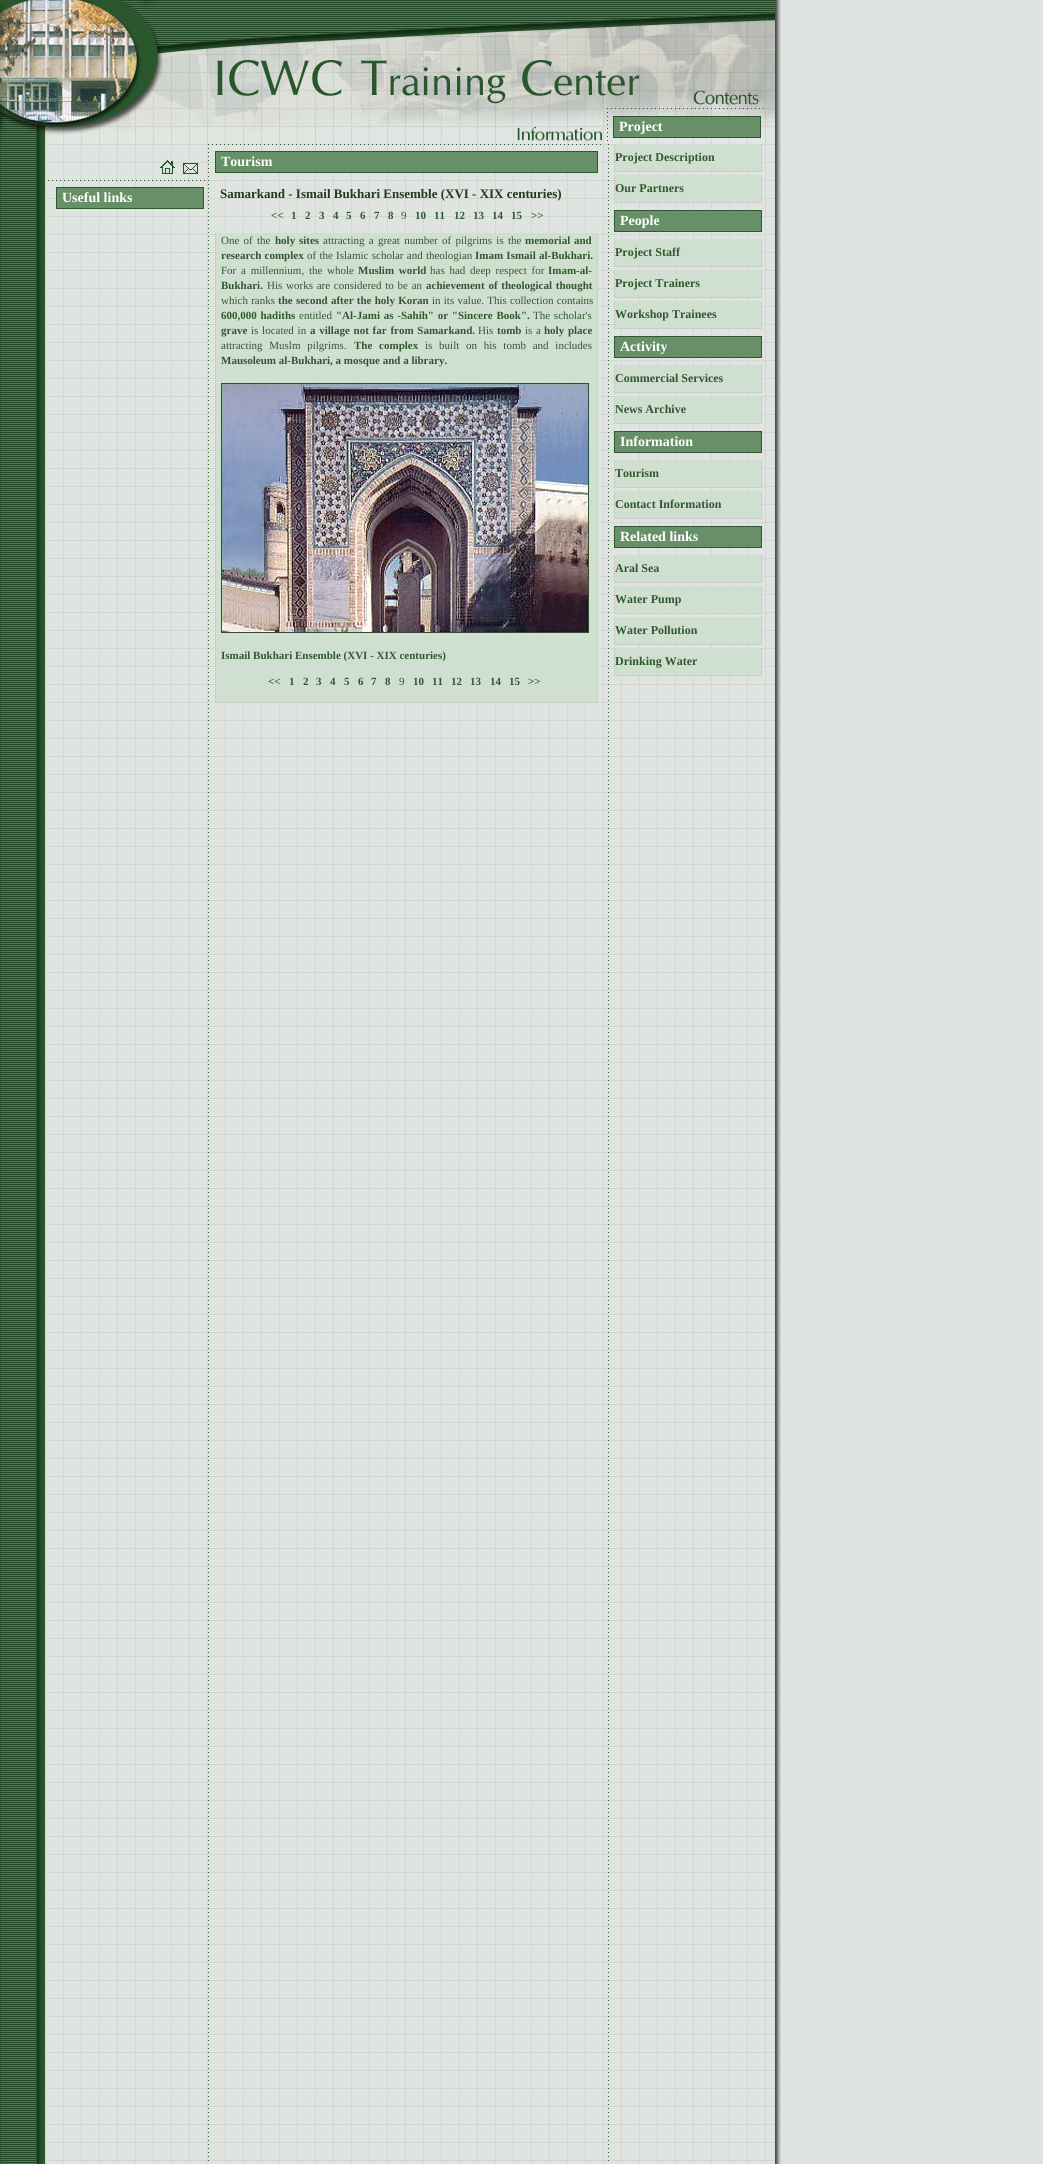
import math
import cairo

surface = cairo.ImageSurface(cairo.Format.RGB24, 1043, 2164)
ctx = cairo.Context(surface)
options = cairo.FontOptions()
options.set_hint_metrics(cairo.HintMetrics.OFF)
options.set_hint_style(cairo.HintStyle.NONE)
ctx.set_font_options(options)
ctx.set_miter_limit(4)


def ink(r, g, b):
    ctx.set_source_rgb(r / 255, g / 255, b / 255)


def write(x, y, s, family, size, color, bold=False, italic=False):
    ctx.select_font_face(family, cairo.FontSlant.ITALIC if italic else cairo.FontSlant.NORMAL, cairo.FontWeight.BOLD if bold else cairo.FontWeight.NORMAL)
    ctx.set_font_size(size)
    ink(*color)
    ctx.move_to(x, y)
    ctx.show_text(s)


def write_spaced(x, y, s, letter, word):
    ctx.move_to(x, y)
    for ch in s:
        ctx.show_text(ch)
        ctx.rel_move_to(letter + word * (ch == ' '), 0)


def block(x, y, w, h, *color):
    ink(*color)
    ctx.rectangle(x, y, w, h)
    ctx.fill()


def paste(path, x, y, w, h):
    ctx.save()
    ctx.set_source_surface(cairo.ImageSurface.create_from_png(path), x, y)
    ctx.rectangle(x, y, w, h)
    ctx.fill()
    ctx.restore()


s1 = dict(family="Liberation Serif", size=14, color=(255, 255, 255), bold=True)
s2 = dict(family="Liberation Serif", size=13, color=(32, 57, 32), bold=True)
s3 = dict(family="Liberation Serif", size=11, color=(48, 88, 48), bold=True)
s4 = dict(family="Liberation Serif", size=11, color=(48, 88, 48))
s5 = dict(family="Liberation Serif", size=12, color=(48, 88, 48), bold=True)

ink(224, 228, 224)
ctx.paint()
paste("pic1.png", 0, 0, 207, 144)
paste("pic2.png", 207, 0, 72, 144)
paste("pic3.png", 279, 0, 324, 144)
paste("pic4.png", 517, 126, 85, 16)
paste("pic5.png", 603, 0, 172, 108)
paste("pic6.png", 693, 90, 66, 15)
paste("pic7.png", 775, 0, 6, 144)
paste("pic8.png", 603, 108, 172, 36)
paste("pic9.png", 607, 108, 157, 1)
paste("pic10.png", 607, 112, 1, 29)
ink(104, 144, 104)
ctx.rectangle(613.5, 116.5, 147, 21)
ctx.fill_preserve()
ink(48, 88, 48)
ctx.set_line_width(1)
ctx.stroke()
write(619, 131, "Project", **s1)
paste("pic11.png", 0, 144, 45, 2020)
paste("pic12.png", 45, 144, 737, 2020)
paste("pic13.png", 160, 160, 15, 14)
paste("pic14.png", 183, 163, 15, 11)
paste("pic15.png", 48, 180, 157, 1)
ink(104, 144, 104)
ctx.rectangle(56.5, 187.5, 147, 21)
ctx.fill_preserve()
ink(48, 88, 48)
ctx.stroke()
write(62, 202, "Useful links", **s1)
paste("pic16.png", 208, 144, 1, 2017)
paste("pic17.png", 212, 144, 389, 1)
ink(104, 144, 104)
ctx.rectangle(215.5, 151.5, 382, 21)
ctx.fill_preserve()
ink(48, 88, 48)
ctx.stroke()
write(221, 166, "Tourism", **s1)
write(220, 198, "Samarkand - Ismail Bukhari Ensemble (XVI - XIX centuries)", **s2)
write(271, 219, "<<", **s3)
write(291, 219, "1", **s3)
write(305, 219, "2", **s3)
write(319, 219, "3", **s3)
write(333, 219, "4", **s3)
write(346, 219, "5", **s3)
write(360, 219, "6", **s3)
write(374, 219, "7", **s3)
write(388, 219, "8", **s3)
write(401, 219, "9", **s4)
write(415, 219, "10", **s3)
write(434, 219, "11", **s3)
write(454, 219, "12", **s3)
write(473, 219, "13", **s3)
write(492, 219, "14", **s3)
write(511, 219, "15", **s3)
write(531, 219, ">>", **s3)
block(216, 233, 381, 469, 208, 224, 208)
block(597, 233, 1, 470, 204, 204, 204)
block(215, 702, 383, 1, 204, 204, 204)
block(215, 233, 1, 470, 204, 204, 204)
ctx.select_font_face("Liberation Serif")
ink(48, 88, 48)
write_spaced(221, 244, "One of the", 0, 1.5)
ctx.select_font_face("Liberation Serif", cairo.FontSlant.NORMAL, cairo.FontWeight.BOLD)
write_spaced(275, 244, "holy sites", 0, 1)
ctx.select_font_face("Liberation Serif")
write_spaced(323, 244, "attracting a great number of pilgrims is the", 0, 1.5)
ctx.select_font_face("Liberation Serif", cairo.FontSlant.NORMAL, cairo.FontWeight.BOLD)
write_spaced(525, 244, "memorial and", 0, 1)
write_spaced(221, 259, "research complex", 0, 0.5)
ctx.select_font_face("Liberation Serif")
write_spaced(307, 259, "of the Islamic scholar and theologian", 0, 0.5)
ctx.select_font_face("Liberation Serif", cairo.FontSlant.NORMAL, cairo.FontWeight.BOLD)
write_spaced(475, 259, "Imam Ismail al-Bukhari.", 0, 0.5)
ctx.select_font_face("Liberation Serif")
write_spaced(221, 274, "For a millennium, the whole", 0, 2)
ctx.select_font_face("Liberation Serif", cairo.FontSlant.NORMAL, cairo.FontWeight.BOLD)
write_spaced(358, 274, "Muslim world", 0, 2)
ctx.select_font_face("Liberation Serif")
write_spaced(430, 274, "has had deep respect for", 0, 2)
write(548, 274, "Imam-al-", **s3)
write(221, 289, "Bukhari.", **s3)
ctx.select_font_face("Liberation Serif")
write_spaced(267, 289, "His works are considered to be an", 0, 1)
ctx.select_font_face("Liberation Serif", cairo.FontSlant.NORMAL, cairo.FontWeight.BOLD)
write_spaced(426, 289, "achievement of theological thought", 0, 1)
ctx.select_font_face("Liberation Serif")
write_spaced(221, 304, "which ranks", 0, 0.5)
ctx.select_font_face("Liberation Serif", cairo.FontSlant.NORMAL, cairo.FontWeight.BOLD)
write_spaced(278, 304, "the second after the holy Koran", 0, 0.5)
ctx.select_font_face("Liberation Serif")
write_spaced(432, 304, "in its value. This collection contains", 0, 0.5)
ctx.select_font_face("Liberation Serif", cairo.FontSlant.NORMAL, cairo.FontWeight.BOLD)
write_spaced(221, 319, "600,000 hadiths", 0, 1)
write(299, 319, "entitled", **s4)
ctx.select_font_face("Liberation Serif", cairo.FontSlant.NORMAL, cairo.FontWeight.BOLD)
write_spaced(336, 319, "\"Al-Jami as -Sahih\" or \"Sincere Book\".", 0, 1)
ctx.select_font_face("Liberation Serif")
write_spaced(533, 319, "The scholar's", 0, 1)
write(221, 334, "grave", **s3)
ctx.select_font_face("Liberation Serif")
write_spaced(251, 334, "is located in", 0, 1)
ctx.select_font_face("Liberation Serif", cairo.FontSlant.NORMAL, cairo.FontWeight.BOLD)
write_spaced(310, 334, "a village not far from Samarkand.", 0, 1)
write(478, 334, "His", **s4)
write(497, 334, "tomb", **s3)
ctx.select_font_face("Liberation Serif")
write_spaced(525, 334, "is a", 0, 1)
ctx.select_font_face("Liberation Serif", cairo.FontSlant.NORMAL, cairo.FontWeight.BOLD)
write_spaced(544, 334, "holy place", 0, 1)
ctx.select_font_face("Liberation Serif")
write_spaced(221, 349, "attracting Muslm pilgrims.", 0, 4)
ctx.select_font_face("Liberation Serif", cairo.FontSlant.NORMAL, cairo.FontWeight.BOLD)
write_spaced(354, 349, "The complex", 0, 4)
ctx.select_font_face("Liberation Serif")
write_spaced(425, 349, "is built on his tomb and includes", 0, 4)
write(221, 364, "Mausoleum al-Bukhari, a mosque and a library.", **s3)
paste("pic18.png", 221, 383, 368, 250)
write(221, 659, "Ismail Bukhari Ensemble (XVI - XIX centuries)", **s3)
write(268, 685, "<<", **s3)
write(289, 685, "1", **s3)
write(303, 685, "2", **s3)
write(316, 685, "3", **s3)
write(330, 685, "4", **s3)
write(344, 685, "5", **s3)
write(358, 685, "6", **s3)
write(371, 685, "7", **s3)
write(385, 685, "8", **s3)
write(399, 685, "9", **s4)
write(413, 685, "10", **s3)
write(432, 685, "11", **s3)
write(451, 685, "12", **s3)
write(470, 685, "13", **s3)
write(490, 685, "14", **s3)
write(509, 685, "15", **s3)
write(528, 685, ">>", **s3)
paste("pic16.png", 608, 144, 1, 2017)
block(615, 144, 146, 27, 208, 224, 208)
block(761, 144, 1, 28, 204, 204, 204)
block(614, 171, 148, 1, 204, 204, 204)
block(614, 144, 1, 28, 204, 204, 204)
write(615, 161, "Project Description", **s5)
block(615, 175, 146, 27, 208, 224, 208)
block(761, 175, 1, 28, 204, 204, 204)
block(614, 202, 148, 1, 204, 204, 204)
block(614, 175, 1, 28, 204, 204, 204)
write(615, 192, "Our Partners", **s5)
ink(104, 144, 104)
ctx.rectangle(614.5, 210.5, 147, 21)
ctx.fill_preserve()
ink(48, 88, 48)
ctx.stroke()
write(620, 225, "People", **s1)
block(615, 239, 146, 27, 208, 224, 208)
block(761, 239, 1, 28, 204, 204, 204)
block(614, 266, 148, 1, 204, 204, 204)
block(614, 239, 1, 28, 204, 204, 204)
write(615, 256, "Project Staff", **s5)
block(615, 270, 146, 27, 208, 224, 208)
block(761, 270, 1, 28, 204, 204, 204)
block(614, 297, 148, 1, 204, 204, 204)
block(614, 270, 1, 28, 204, 204, 204)
write(615, 287, "Project Trainers", **s5)
block(615, 301, 146, 27, 208, 224, 208)
block(761, 301, 1, 28, 204, 204, 204)
block(614, 328, 148, 1, 204, 204, 204)
block(614, 301, 1, 28, 204, 204, 204)
write(615, 318, "Workshop Trainees", **s5)
ink(104, 144, 104)
ctx.rectangle(614.5, 336.5, 147, 21)
ctx.fill_preserve()
ink(48, 88, 48)
ctx.stroke()
write(620, 351, "Activity", **s1)
block(615, 365, 146, 27, 208, 224, 208)
block(761, 365, 1, 28, 204, 204, 204)
block(614, 392, 148, 1, 204, 204, 204)
block(614, 365, 1, 28, 204, 204, 204)
write(615, 382, "Commercial Services", **s5)
block(615, 396, 146, 27, 208, 224, 208)
block(761, 396, 1, 28, 204, 204, 204)
block(614, 423, 148, 1, 204, 204, 204)
block(614, 396, 1, 28, 204, 204, 204)
write(615, 413, "News Archive", **s5)
ink(104, 144, 104)
ctx.rectangle(614.5, 431.5, 147, 21)
ctx.fill_preserve()
ink(48, 88, 48)
ctx.stroke()
write(620, 446, "Information", **s1)
block(615, 460, 146, 27, 208, 224, 208)
block(761, 460, 1, 28, 204, 204, 204)
block(614, 487, 148, 1, 204, 204, 204)
block(614, 460, 1, 28, 204, 204, 204)
write(615, 477, "Tourism", **s5)
block(615, 491, 146, 27, 208, 224, 208)
block(761, 491, 1, 28, 204, 204, 204)
block(614, 518, 148, 1, 204, 204, 204)
block(614, 491, 1, 28, 204, 204, 204)
write(615, 508, "Contact Information", **s5)
ink(104, 144, 104)
ctx.rectangle(614.5, 526.5, 147, 21)
ctx.fill_preserve()
ink(48, 88, 48)
ctx.stroke()
write(620, 541, "Related links", **s1)
block(615, 555, 146, 27, 208, 224, 208)
block(761, 555, 1, 28, 204, 204, 204)
block(614, 582, 148, 1, 204, 204, 204)
block(614, 555, 1, 28, 204, 204, 204)
write(615, 572, "Aral Sea", **s5)
block(615, 586, 146, 27, 208, 224, 208)
block(761, 586, 1, 28, 204, 204, 204)
block(614, 613, 148, 1, 204, 204, 204)
block(614, 586, 1, 28, 204, 204, 204)
write(615, 603, "Water Pump", **s5)
block(615, 617, 146, 27, 208, 224, 208)
block(761, 617, 1, 28, 204, 204, 204)
block(614, 644, 148, 1, 204, 204, 204)
block(614, 617, 1, 28, 204, 204, 204)
write(615, 634, "Water Pollution", **s5)
block(615, 648, 146, 27, 208, 224, 208)
block(761, 648, 1, 28, 204, 204, 204)
block(614, 675, 148, 1, 204, 204, 204)
block(614, 648, 1, 28, 204, 204, 204)
write(615, 665, "Drinking Water", **s5)
paste("pic19.png", 775, 144, 6, 2020)
surface.write_to_png("screenshot.png")
